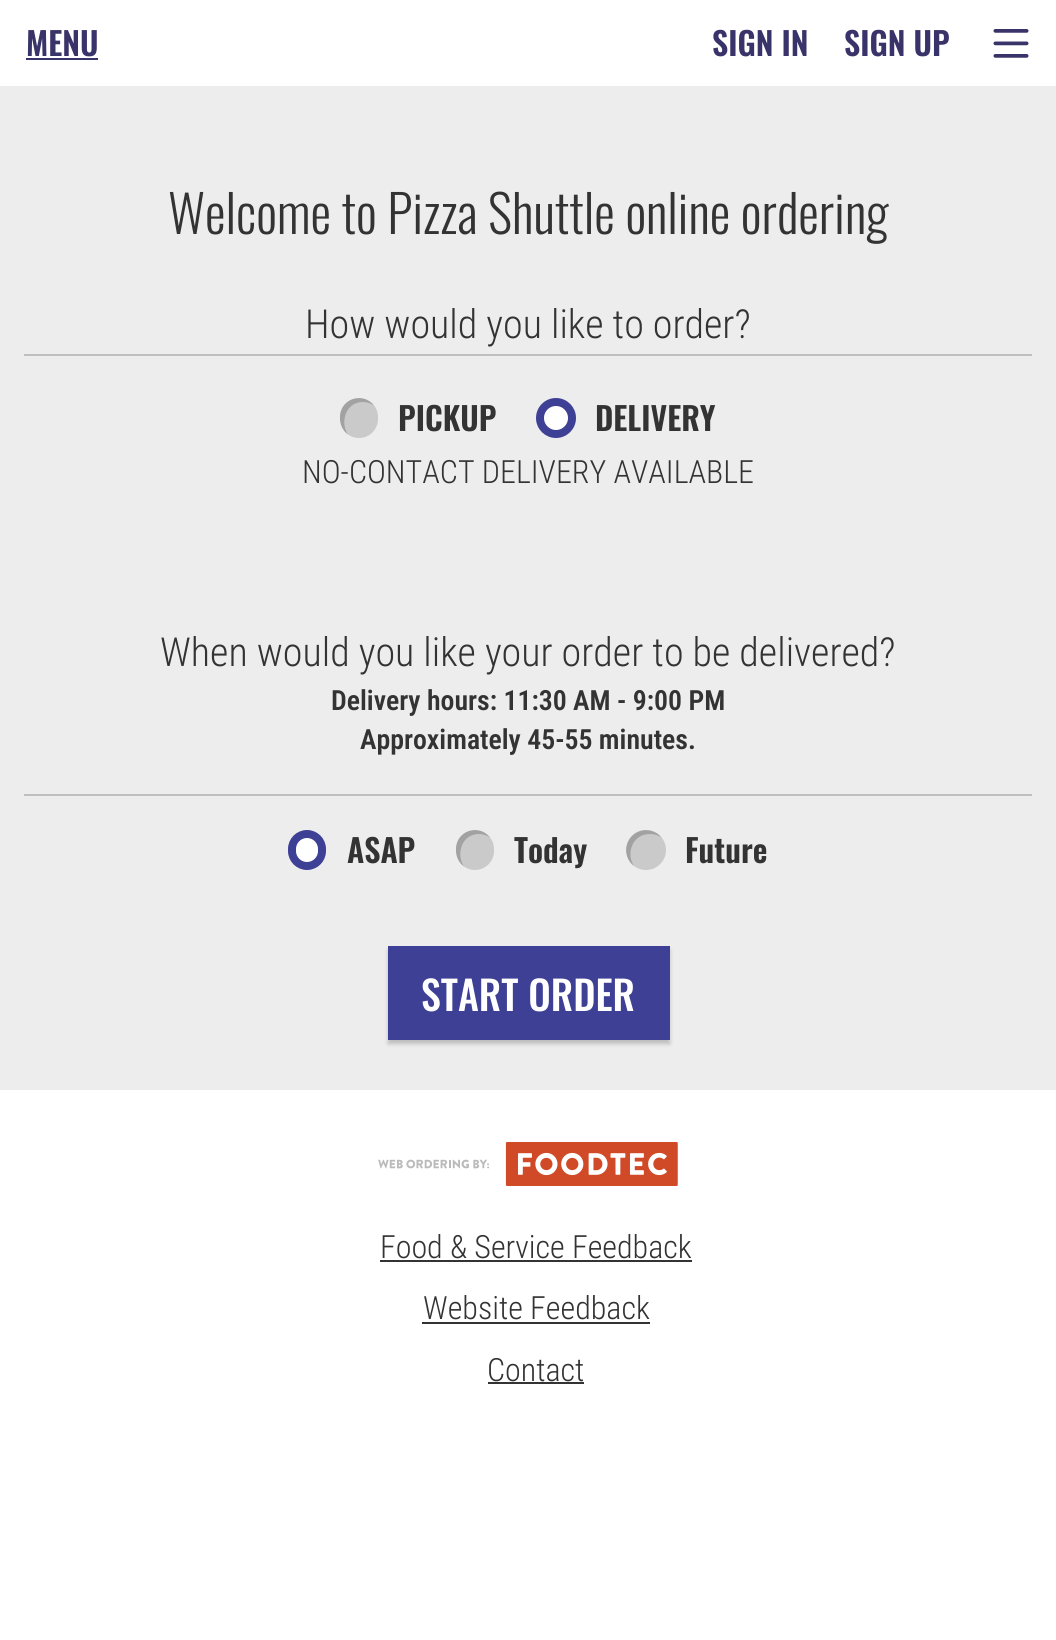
import math
import cairo

surface = cairo.ImageSurface(cairo.Format.RGB24, 1056, 1640)
ctx = cairo.Context(surface)
options = cairo.FontOptions()
options.set_hint_metrics(cairo.HintMetrics.OFF)
options.set_hint_style(cairo.HintStyle.NONE)
ctx.set_font_options(options)
ctx.set_miter_limit(4)


def ink(r, g, b):
    ctx.set_source_rgb(r / 255, g / 255, b / 255)


def write(x, y, s, family, size, color, bold=False, italic=False):
    ctx.select_font_face(family, cairo.FontSlant.ITALIC if italic else cairo.FontSlant.NORMAL, cairo.FontWeight.BOLD if bold else cairo.FontWeight.NORMAL)
    ctx.set_font_size(size)
    ink(*color)
    ctx.move_to(x, y)
    ctx.show_text(s)


def block(x, y, w, h, *color):
    ink(*color)
    ctx.rectangle(x, y, w, h)
    ctx.fill()


def round_path(x, y, w, h, r):
    ctx.new_sub_path()
    for i, (u, v) in enumerate([(x + w - r, y + h - r), (x + r, y + h - r), (x + r, y + r), (x + w - r, y + r)]):
        ctx.arc(u, v, r, i * math.pi / 2, (i + 1) * math.pi / 2)
    ctx.close_path()


def blur_box(x, y, w, h, r, blur, alpha):
    ctx.push_group_with_content(cairo.Content.ALPHA)
    ctx.set_operator(cairo.Operator.SOURCE)
    for i in range(15, -16, -2):
        e = blur * i / 6
        if min(w, h) + 2 * e > 0:
            ctx.set_source_rgba(0, 0, 0, alpha * math.erfc((i - 1) / 8.5) / 2)
            round_path(x - e, y - e, w + 2 * e, h + 2 * e, max(0, min(r + e + blur * .6, min(w, h) / 2 + e)))
            ctx.fill()
    ctx.mask(ctx.pop_group())


def paste(path, x, y, w, h):
    ctx.save()
    ctx.set_source_surface(cairo.ImageSurface.create_from_png(path), x, y)
    ctx.rectangle(x, y, w, h)
    ctx.fill()
    ctx.restore()


s1 = dict(family="Oswald SemiBold", size=32, color=(56, 51, 104))
s2 = dict(family="Oswald Light", size=51.9, color=(51, 51, 51))
s3 = dict(family="Roboto Condensed Light", size=40, color=(51, 51, 51))
s4 = dict(family="Oswald SemiBold", size=32, color=(51, 51, 51))
s5 = dict(family="Roboto Condensed Light", size=32, color=(51, 51, 51))
s6 = dict(family="Roboto Condensed SemiBold", size=27.8, color=(51, 51, 51))
s7 = dict(family="Oswald Medium", size=40, color=(255, 255, 255))

ink(255, 255, 255)
ctx.paint()
write(26, 56, "MENU", **s1)
block(26, 58, 72, 2, 56, 51, 104)
write(712, 56, "SIGN IN", **s1)
write(844, 56, "SIGN UP", **s1)
paste("pic1.png", 993, 29, 36, 29)
block(0, 86, 1056, 1004, 237, 237, 237)
write(168, 234, "Welcome to Pizza Shuttle online ordering", **s2)
write(305, 338, "How would you like to order?", **s3)
block(24, 354, 1008, 2, 191, 191, 191)
ink(202, 202, 202)
round_path(340, 398, 38, 40, 19)
ctx.fill()
ctx.set_source_rgba(0, 0, 0, 0.2)
ctx.new_path()
ctx.move_to(363, 402)
ctx.curve_to(367.5, 402, 371, 403.5, 374, 405.5)
ctx.curve_to(366.5, 395.5, 350.5, 395.5, 343, 406.5)
ctx.curve_to(337.5, 415, 339.5, 428.5, 348, 434.5)
ctx.curve_to(340, 423, 345, 402, 363, 402)
ctx.close_path()
ctx.fill()
write(398, 431, "PICKUP", **s4)
ink(255, 255, 255)
ctx.new_path()
ctx.arc(556, 418, 16, 0, 2 * math.pi)
ctx.fill_preserve()
ink(62, 64, 149)
ctx.set_line_width(8)
ctx.stroke()
write(595, 431, "DELIVERY", **s4)
write(302, 483, "NO-CONTACT DELIVERY AVAILABLE", **s5)
write(160, 666, "When would you like your order to be delivered?", **s3)
write(331, 710, "Delivery hours: 11:30 AM - 9:00 PM", **s6)
write(360, 749, "Approximately 45-55 minutes.", **s6)
block(24, 794, 1008, 2, 191, 191, 191)
ink(255, 255, 255)
round_path(292, 834, 30, 32, 15)
ctx.fill_preserve()
ink(62, 64, 149)
ctx.stroke()
write(347, 863, "ASAP", **s4)
ink(202, 202, 202)
round_path(456, 830, 38, 40, 19)
ctx.fill()
ctx.set_source_rgba(0, 0, 0, 0.2)
ctx.new_path()
ctx.move_to(479, 834)
ctx.curve_to(483.5, 834, 487, 835.5, 490, 837.5)
ctx.curve_to(482.5, 827.5, 466.5, 827.5, 459, 838.5)
ctx.curve_to(453.5, 847, 455.5, 860.5, 464, 866.5)
ctx.curve_to(456, 855, 461, 834, 479, 834)
ctx.close_path()
ctx.fill()
write(514, 863, "Today", **s4)
ink(202, 202, 202)
ctx.new_path()
ctx.arc(646, 850, 20, 0, 2 * math.pi)
ctx.fill()
ctx.set_source_rgba(0, 0, 0, 0.2)
ctx.new_path()
ctx.move_to(650, 834)
ctx.curve_to(654.5, 834, 658.5, 835.5, 661.5, 837.5)
ctx.curve_to(654.5, 828.5, 640, 827.5, 632, 836)
ctx.curve_to(623.5, 844.5, 624.5, 859, 634, 866)
ctx.curve_to(626, 854.5, 631.5, 834, 650, 834)
ctx.close_path()
ctx.fill()
write(685, 863, "Future", **s4)
ink(0, 0, 0)
blur_box(388, 950, 282, 94, 0, 2, 0.2)
block(388, 946, 282, 94, 62, 64, 149)
write(421, 1011, "START ORDER", **s7)
paste("pic2.png", 378, 1142, 300, 44)
write(380, 1258, "Food & Service Feedback", **s5)
block(380, 1260, 312, 2, 51, 51, 51)
write(423, 1319, "Website Feedback", **s5)
block(422, 1322, 228, 2, 51, 51, 51)
write(487, 1381, "Contact", **s5)
block(488, 1382, 96, 2, 51, 51, 51)
surface.write_to_png("screenshot.png")
